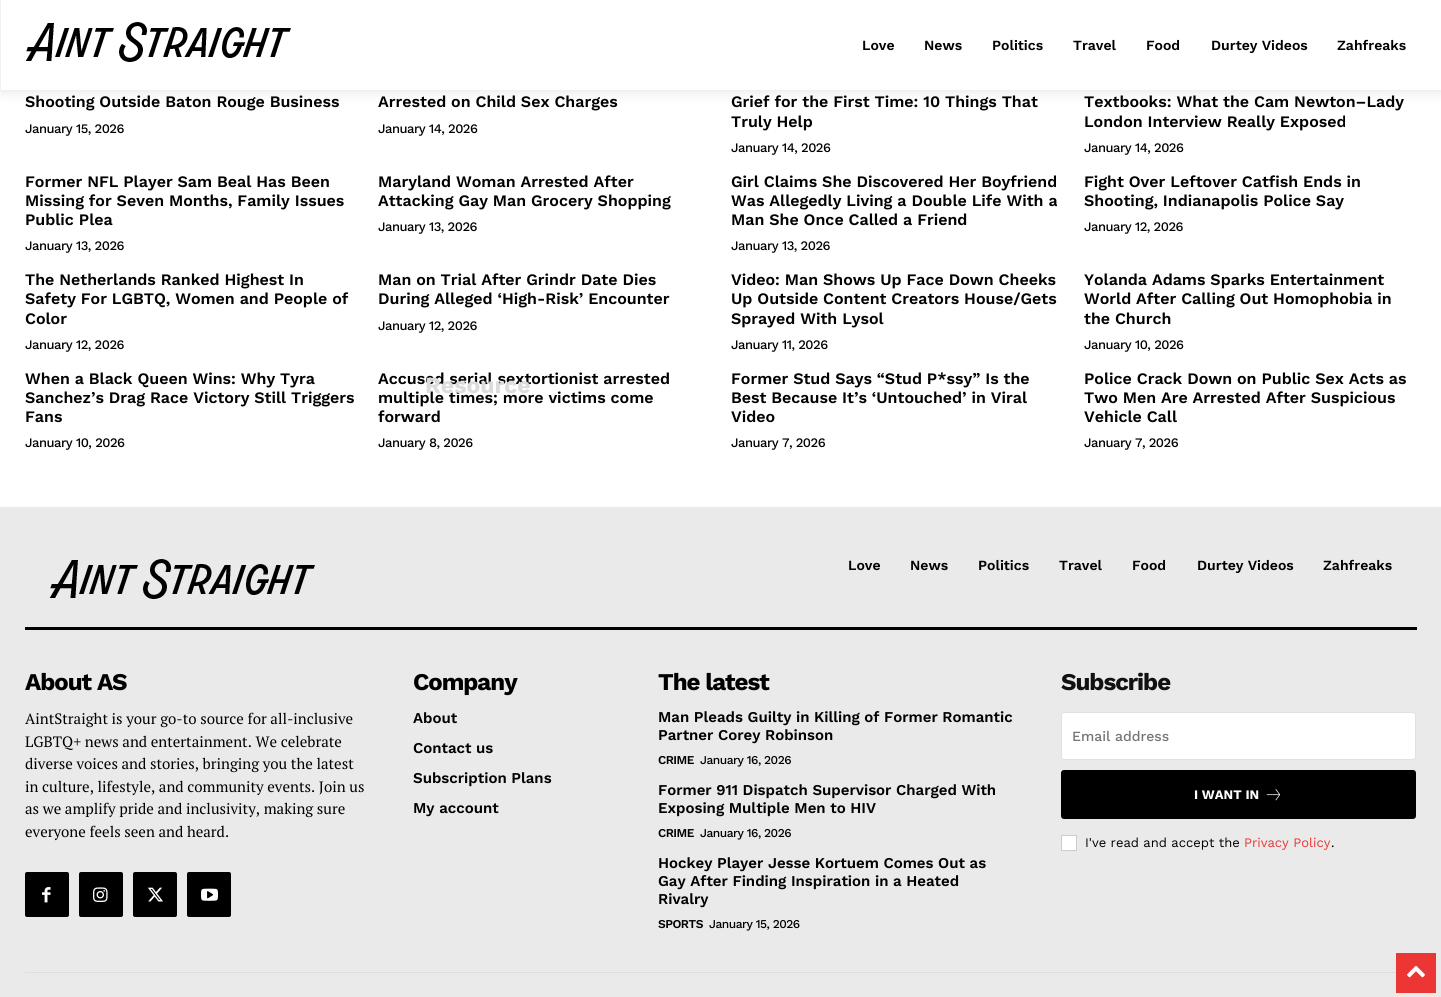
import math
import cairo

surface = cairo.ImageSurface(cairo.Format.RGB24, 1441, 997)
ctx = cairo.Context(surface)
options = cairo.FontOptions()
options.set_hint_metrics(cairo.HintMetrics.OFF)
options.set_hint_style(cairo.HintStyle.NONE)
ctx.set_font_options(options)
ctx.set_miter_limit(4)


def ink(r, g, b):
    ctx.set_source_rgb(r / 255, g / 255, b / 255)


def write(x, y, s, family, size, color, bold=False, italic=False):
    ctx.select_font_face(family, cairo.FontSlant.ITALIC if italic else cairo.FontSlant.NORMAL, cairo.FontWeight.BOLD if bold else cairo.FontWeight.NORMAL)
    ctx.set_font_size(size)
    ink(*color)
    ctx.move_to(x, y)
    ctx.show_text(s)


def write_spaced(x, y, s, letter, word):
    ctx.move_to(x, y)
    for ch in s:
        ctx.show_text(ch)
        ctx.rel_move_to(letter + word * (ch == ' '), 0)


def block(x, y, w, h, *color):
    ink(*color)
    ctx.rectangle(x, y, w, h)
    ctx.fill()


def round_path(x, y, w, h, r):
    ctx.new_sub_path()
    for i, (u, v) in enumerate([(x + w - r, y + h - r), (x + r, y + h - r), (x + r, y + r), (x + w - r, y + r)]):
        ctx.arc(u, v, r, i * math.pi / 2, (i + 1) * math.pi / 2)
    ctx.close_path()


def blur_box(x, y, w, h, r, blur, alpha):
    ctx.push_group_with_content(cairo.Content.ALPHA)
    ctx.set_operator(cairo.Operator.SOURCE)
    for i in range(15, -16, -2):
        e = blur * i / 6
        if min(w, h) + 2 * e > 0:
            ctx.set_source_rgba(0, 0, 0, alpha * math.erfc((i - 1) / 8.5) / 2)
            round_path(x - e, y - e, w + 2 * e, h + 2 * e, max(0, min(r + e + blur * .6, min(w, h) / 2 + e)))
            ctx.fill()
    ctx.mask(ctx.pop_group())


def paste(path, x, y, w, h):
    ctx.save()
    ctx.set_source_surface(cairo.ImageSurface.create_from_png(path), x, y)
    ctx.rectangle(x, y, w, h)
    ctx.fill()
    ctx.restore()


s1 = dict(family="Work Sans SemiBold", size=14, color=(0, 0, 0))
s2 = dict(family="Work Sans SemiBold", size=16, color=(0, 0, 0))
s3 = dict(family="PT Serif", size=15, color=(0, 0, 0))
s4 = dict(family="Work Sans SemiBold", size=15, color=(0, 0, 0))
s5 = dict(family="Work Sans Medium", size=14, color=(117, 117, 117))
s6 = dict(family="Work Sans", size=13, color=(255, 255, 255), bold=True)
s7 = dict(family="Work Sans", size=13, color=(0, 0, 0))
s8 = dict(family="Work Sans", size=13, color=(236, 53, 53))
s9 = dict(family="Work Sans", size=23, color=(220, 220, 220), bold=True)

ink(255, 255, 255)
ctx.paint()
paste("pic1.png", 25, 22, 266, 40)
ctx.save()
ctx.set_fill_rule(cairo.FillRule.EVEN_ODD)
ctx.new_path()
ctx.move_to(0, 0)
ctx.line_to(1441, 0)
ctx.line_to(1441, 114)
ctx.line_to(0, 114)
ctx.close_path()
ctx.move_to(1, 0)
ctx.line_to(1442, 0)
ctx.line_to(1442, 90)
ctx.line_to(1, 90)
ctx.close_path()
ctx.clip()
ink(0, 0, 0)
blur_box(1, 0, 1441, 90, 0, 7.5, 0.12)
ctx.restore()
write(862, 50, "Love", **s1)
write(924, 50, "News", **s1)
write(992, 50, "Politics", **s1)
write(1073, 50, "Travel", **s1)
write(1146, 50, "Food", **s1)
write(1211, 50, "Durtey Videos", **s1)
write(1337, 50, "Zahfreaks", **s1)
write(25, 107, "Shooting Outside Baton Rouge Business", **s2)
ctx.select_font_face("Work Sans Medium")
ctx.set_font_size(13)
write_spaced(25, 133, "January 15, 2026", -0.5, 0)
write(378, 107, "Arrested on Child Sex Charges", **s2)
ctx.select_font_face("Work Sans Medium")
ctx.set_font_size(13)
write_spaced(378, 133, "January 14, 2026", -0.5, 0)
write(731, 107, "Grief for the First Time: 10 Things That", **s2)
write(731, 127, "Truly Help", **s2)
ctx.select_font_face("Work Sans Medium")
ctx.set_font_size(13)
write_spaced(731, 152, "January 14, 2026", -0.5, 0)
write(1084, 107, "Textbooks: What the Cam Newton–Lady", **s2)
write(1084, 127, "London Interview Really Exposed", **s2)
ctx.select_font_face("Work Sans Medium")
ctx.set_font_size(13)
write_spaced(1084, 152, "January 14, 2026", -0.5, 0)
write(25, 187, "Former NFL Player Sam Beal Has Been", **s2)
write(25, 206, "Missing for Seven Months, Family Issues", **s2)
write(25, 225, "Public Plea", **s2)
ctx.select_font_face("Work Sans Medium")
ctx.set_font_size(13)
write_spaced(25, 250, "January 13, 2026", -0.5, 0)
write(378, 187, "Maryland Woman Arrested After", **s2)
write(378, 206, "Attacking Gay Man Grocery Shopping", **s2)
ctx.select_font_face("Work Sans Medium")
ctx.set_font_size(13)
write_spaced(378, 231, "January 13, 2026", -0.5, 0)
write(731, 187, "Girl Claims She Discovered Her Boyfriend", **s2)
write(731, 206, "Was Allegedly Living a Double Life With a", **s2)
write(731, 225, "Man She Once Called a Friend", **s2)
ctx.select_font_face("Work Sans Medium")
ctx.set_font_size(13)
write_spaced(731, 250, "January 13, 2026", -0.5, 0)
write(1084, 187, "Fight Over Leftover Catfish Ends in", **s2)
write(1084, 206, "Shooting, Indianapolis Police Say", **s2)
ctx.select_font_face("Work Sans Medium")
ctx.set_font_size(13)
write_spaced(1084, 231, "January 12, 2026", -0.5, 0)
write(25, 285, "The Netherlands Ranked Highest In", **s2)
write(25, 304, "Safety For LGBTQ, Women and People of", **s2)
write(25, 324, "Color", **s2)
ctx.select_font_face("Work Sans Medium")
ctx.set_font_size(13)
write_spaced(25, 349, "January 12, 2026", -0.5, 0)
write(378, 285, "Man on Trial After Grindr Date Dies", **s2)
write(378, 304, "During Alleged ‘High-Risk’ Encounter", **s2)
ctx.select_font_face("Work Sans Medium")
ctx.set_font_size(13)
write_spaced(378, 330, "January 12, 2026", -0.5, 0)
write(731, 285, "Video: Man Shows Up Face Down Cheeks", **s2)
write(731, 304, "Up Outside Content Creators House/Gets", **s2)
write(731, 324, "Sprayed With Lysol", **s2)
ctx.select_font_face("Work Sans Medium")
ctx.set_font_size(13)
write_spaced(731, 349, "January 11, 2026", -0.5, 0)
write(1084, 285, "Yolanda Adams Sparks Entertainment", **s2)
write(1084, 304, "World After Calling Out Homophobia in", **s2)
write(1084, 324, "the Church", **s2)
ctx.select_font_face("Work Sans Medium")
ctx.set_font_size(13)
write_spaced(1084, 349, "January 10, 2026", -0.5, 0)
write(25, 384, "When a Black Queen Wins: Why Tyra", **s2)
write(25, 403, "Sanchez’s Drag Race Victory Still Triggers", **s2)
write(25, 422, "Fans", **s2)
ctx.select_font_face("Work Sans Medium")
ctx.set_font_size(13)
write_spaced(25, 447, "January 10, 2026", -0.5, 0)
write(378, 384, "Accused serial sextortionist arrested", **s2)
write(378, 403, "multiple times; more victims come", **s2)
write(378, 422, "forward", **s2)
ctx.select_font_face("Work Sans Medium")
ctx.set_font_size(13)
write_spaced(378, 447, "January 8, 2026", -0.5, 0)
write(731, 384, "Former Stud Says “Stud P*ssy” Is the", **s2)
write(731, 403, "Best Because It’s ‘Untouched’ in Viral", **s2)
write(731, 422, "Video", **s2)
ctx.select_font_face("Work Sans Medium")
ctx.set_font_size(13)
write_spaced(731, 447, "January 7, 2026", -0.5, 0)
write(1084, 384, "Police Crack Down on Public Sex Acts as", **s2)
write(1084, 403, "Two Men Are Arrested After Suspicious", **s2)
write(1084, 422, "Vehicle Call", **s2)
ctx.select_font_face("Work Sans Medium")
ctx.set_font_size(13)
write_spaced(1084, 447, "January 7, 2026", -0.5, 0)
block(0, 507, 1441, 490, 234, 234, 234)
block(25, 627, 1392, 3, 0, 0, 0)
paste("pic2.png", 49, 559, 266, 40)
write(848, 570, "Love", **s1)
write(910, 570, "News", **s1)
write(978, 570, "Politics", **s1)
write(1059, 570, "Travel", **s1)
write(1132, 570, "Food", **s1)
write(1197, 570, "Durtey Videos", **s1)
write(1323, 570, "Zahfreaks", **s1)
ctx.select_font_face("Work Sans", cairo.FontSlant.NORMAL, cairo.FontWeight.BOLD)
ctx.set_font_size(24)
write_spaced(25, 690, "About AS", -1, 0)
write(25, 724, "AintStraight is your go-to source for all-inclusive", **s3)
write(25, 747, "LGBTQ+ news and entertainment. We celebrate", **s3)
write(25, 769, "diverse voices and stories, bringing you the latest", **s3)
write(25, 792, "in culture, lifestyle, and community events. Join us", **s3)
write(25, 814, "as we amplify pride and inclusivity, making sure", **s3)
write(25, 837, "everyone feels seen and heard.", **s3)
round_path(25, 872, 44, 45, 2)
ctx.fill()
paste("pic3.png", 42, 887, 9, 16)
round_path(79, 872, 44, 45, 2)
ctx.fill()
paste("pic4.png", 93, 887, 15, 15)
round_path(133, 872, 44, 45, 2)
ctx.fill()
paste("pic5.png", 148, 887, 15, 15)
round_path(187, 872, 44, 45, 2)
ctx.fill()
paste("pic6.png", 201, 888, 17, 13)
ctx.select_font_face("Work Sans", cairo.FontSlant.NORMAL, cairo.FontWeight.BOLD)
ctx.set_font_size(24)
write_spaced(413, 690, "Company", -1, 0)
write(413, 723, "About", **s4)
write(413, 753, "Contact us", **s4)
write(413, 783, "Subscription Plans", **s4)
write(413, 813, "My account", **s4)
ctx.select_font_face("Work Sans", cairo.FontSlant.NORMAL, cairo.FontWeight.BOLD)
ctx.set_font_size(24)
write_spaced(658, 690, "The latest", -1, 0)
write(658, 722, "Man Pleads Guilty in Killing of Former Romantic", **s4)
write(658, 740, "Partner Corey Robinson", **s4)
ctx.set_font_size(12)
write_spaced(658, 764, "CRIME", -0.5, 0)
ctx.select_font_face("Work Sans Medium")
write_spaced(700, 764, "January 16, 2026", -0.5, 0)
write(658, 795, "Former 911 Dispatch Supervisor Charged With", **s4)
write(658, 813, "Exposing Multiple Men to HIV", **s4)
ctx.set_font_size(12)
write_spaced(658, 837, "CRIME", -0.5, 0)
ctx.select_font_face("Work Sans Medium")
write_spaced(700, 837, "January 16, 2026", -0.5, 0)
write(658, 868, "Hockey Player Jesse Kortuem Comes Out as", **s4)
write(658, 886, "Gay After Finding Inspiration in a Heated", **s4)
write(658, 904, "Rivalry", **s4)
ctx.set_font_size(12)
write_spaced(658, 928, "SPORTS", -0.5, 0)
ctx.select_font_face("Work Sans Medium")
write_spaced(709, 928, "January 15, 2026", -0.5, 0)
ctx.select_font_face("Work Sans", cairo.FontSlant.NORMAL, cairo.FontWeight.BOLD)
ctx.set_font_size(24)
ink(17, 17, 17)
write_spaced(1061, 690, "Subscribe", -1, 0)
ink(255, 255, 255)
round_path(1061.5, 712.5, 354, 47, 2.5)
ctx.fill_preserve()
ink(225, 225, 225)
ctx.set_line_width(1)
ctx.stroke()
write(1072, 741, "Email address", **s5)
ink(0, 0, 0)
round_path(1061, 770, 355, 49, 3)
ctx.fill()
write(1194, 799, "I WANT IN", **s6)
paste("pic7.png", 1266, 789, 15, 12)
ctx.rectangle(1061.5, 835.5, 15, 15)
ctx.fill_preserve()
ink(204, 204, 204)
ctx.stroke()
write(1085, 847, "I've read and accept the", **s7)
write(1244, 847, "Privacy Policy", **s8)
write(1331, 847, ".", **s7)
block(25, 972, 1371, 1, 221, 221, 221)
write(425, 393, "Resource", **s9)
block(1396, 953, 40, 40, 236, 53, 53)
paste("pic8.png", 1407, 965, 18, 13)
surface.write_to_png("screenshot.png")
